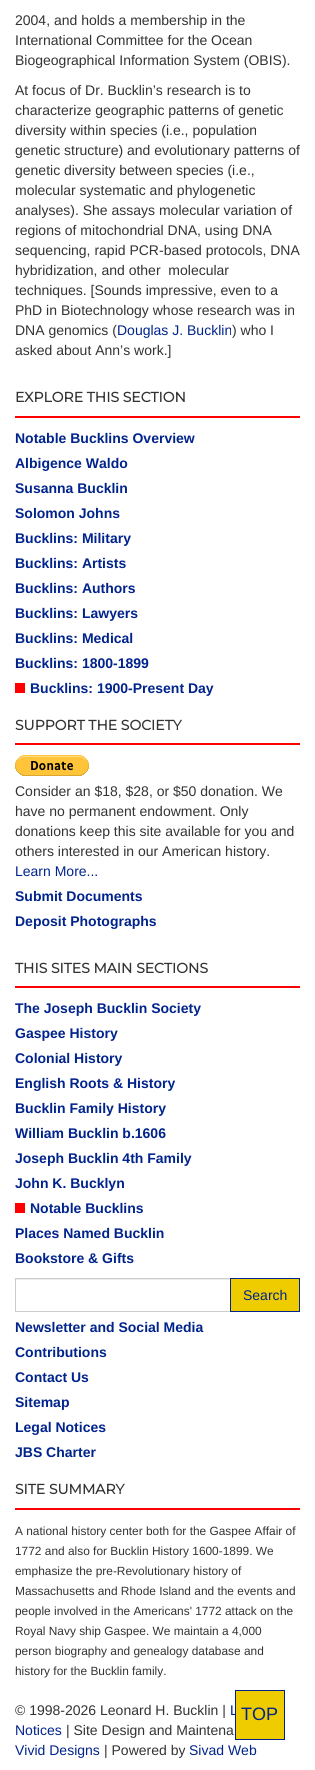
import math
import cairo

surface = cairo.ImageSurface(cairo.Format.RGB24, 315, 1770)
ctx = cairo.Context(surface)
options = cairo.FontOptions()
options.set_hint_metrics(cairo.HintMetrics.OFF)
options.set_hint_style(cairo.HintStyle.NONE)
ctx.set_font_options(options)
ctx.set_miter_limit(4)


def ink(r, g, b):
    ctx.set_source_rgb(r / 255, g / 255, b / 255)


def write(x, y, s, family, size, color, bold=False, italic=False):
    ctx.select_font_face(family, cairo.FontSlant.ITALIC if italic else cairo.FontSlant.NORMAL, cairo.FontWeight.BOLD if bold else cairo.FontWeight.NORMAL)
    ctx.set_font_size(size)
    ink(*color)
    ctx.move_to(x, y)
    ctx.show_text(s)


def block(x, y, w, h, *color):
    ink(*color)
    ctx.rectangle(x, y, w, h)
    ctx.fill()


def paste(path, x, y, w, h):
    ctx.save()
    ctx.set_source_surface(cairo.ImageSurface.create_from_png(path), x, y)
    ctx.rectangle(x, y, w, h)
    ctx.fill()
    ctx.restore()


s1 = dict(family="Liberation Sans", size=14, color=(51, 51, 51))
s2 = dict(family="Liberation Sans", size=14, color=(0, 35, 140))
s3 = dict(family="Montserrat", size=14, color=(51, 51, 51), bold=True)
s4 = dict(family="Liberation Sans", size=14, color=(0, 35, 140), bold=True)
s5 = dict(family="Liberation Sans", size=11.9, color=(51, 51, 51))
s6 = dict(family="Liberation Sans", size=18, color=(0, 35, 140))

ink(255, 255, 255)
ctx.paint()
write(15, 25, "2004, and holds a membership in the", **s1)
write(15, 45, "International Committee for the Ocean", **s1)
write(15, 65, "Biogeographical Information System (OBIS).", **s1)
write(15, 95, "At focus of Dr. Bucklin’s research is to", **s1)
write(15, 115, "characterize geographic patterns of genetic", **s1)
write(15, 135, "diversity within species (i.e., population", **s1)
write(15, 155, "genetic structure) and evolutionary patterns of", **s1)
write(15, 175, "genetic diversity between species (i.e.,", **s1)
write(15, 195, "molecular systematic and phylogenetic", **s1)
write(15, 215, "analyses). She assays molecular variation of", **s1)
write(15, 235, "regions of mitochondrial DNA, using DNA", **s1)
write(15, 255, "sequencing, rapid PCR-based protocols, DNA", **s1)
write(15, 275, "hybridization, and other  molecular", **s1)
write(15, 295, "techniques. [Sounds impressive, even to a", **s1)
write(15, 315, "PhD in Biotechnology whose research was in", **s1)
write(15, 335, "DNA genomics (", **s1)
write(117, 335, "Douglas J. Bucklin", **s2)
write(232, 335, ") who I", **s1)
write(15, 355, "asked about Ann’s work.]", **s1)
block(15, 416, 285, 2, 254, 0, 0)
write(15, 402, "EXPLORE THIS SECTION", **s3)
write(15, 443, "Notable Bucklins Overview", **s4)
write(15, 468, "Albigence Waldo", **s4)
write(15, 493, "Susanna Bucklin", **s4)
write(15, 518, "Solomon Johns", **s4)
write(15, 543, "Bucklins: Military", **s4)
write(15, 568, "Bucklins: Artists", **s4)
write(15, 593, "Bucklins: Authors", **s4)
write(15, 618, "Bucklins: Lawyers", **s4)
write(15, 643, "Bucklins: Medical", **s4)
write(15, 668, "Bucklins: 1800-1899", **s4)
write(30, 693, "Bucklins: 1900-Present Day", **s4)
block(15, 683, 10, 10, 255, 0, 0)
block(15, 743, 285, 2, 254, 0, 0)
write(15, 730, "SUPPORT THE SOCIETY", **s3)
paste("pic1.png", 15, 755, 74, 21)
write(15, 796, "Consider an $18, $28, or $50 donation. We", **s1)
write(15, 816, "have no permanent endowment. Only", **s1)
write(15, 836, "donations keep this site available for you and", **s1)
write(15, 856, "others interested in our American history.", **s1)
write(15, 876, "Learn More...", **s2)
write(15, 901, "Submit Documents", **s4)
write(15, 926, "Deposit Photographs", **s4)
block(15, 986, 285, 2, 254, 0, 0)
write(15, 973, "THIS SITES MAIN SECTIONS", **s3)
write(15, 1013, "The Joseph Bucklin Society", **s4)
write(15, 1038, "Gaspee History", **s4)
write(15, 1063, "Colonial History", **s4)
write(15, 1088, "English Roots & History", **s4)
write(15, 1113, "Bucklin Family History", **s4)
write(15, 1138, "William Bucklin b.1606", **s4)
write(15, 1163, "Joseph Bucklin 4th Family", **s4)
write(15, 1188, "John K. Bucklyn", **s4)
write(30, 1213, "Notable Bucklins", **s4)
block(15, 1203, 10, 10, 255, 0, 0)
write(15, 1238, "Places Named Bucklin", **s4)
write(15, 1263, "Bookstore & Gifts", **s4)
block(16, 1279, 214, 1, 236, 236, 236)
ctx.rectangle(15.5, 1278.5, 215, 33)
ink(204, 204, 204)
ctx.set_line_width(1)
ctx.stroke()
ink(238, 204, 0)
ctx.rectangle(230.5, 1278.5, 69, 33)
ctx.fill_preserve()
ink(0, 35, 140)
ctx.stroke()
write(243, 1300, "Search", **s2)
write(15, 1332, "Newsletter and Social Media", **s4)
write(15, 1357, "Contributions", **s4)
write(15, 1382, "Contact Us", **s4)
write(15, 1407, "Sitemap", **s4)
write(15, 1432, "Legal Notices", **s4)
write(15, 1457, "JBS Charter", **s4)
block(15, 1508, 285, 2, 254, 0, 0)
write(15, 1494, "SITE SUMMARY", **s3)
write(15, 1535, "A national history center both for the Gaspee Affair of", **s5)
write(15, 1555, "1772 and also for Bucklin History 1600-1899. We", **s5)
write(15, 1575, "emphasize the pre-Revolutionary history of", **s5)
write(15, 1595, "Massachusetts and Rhode Island and the events and", **s5)
write(15, 1615, "people involved in the Americans' 1772 attack on the", **s5)
write(15, 1635, "Royal Navy ship Gaspee. We maintain a 4,000", **s5)
write(15, 1655, "person biography and genealogy database and", **s5)
write(15, 1675, "history for the Bucklin family.", **s5)
write(15, 1715, "© 1998-2026 Leonard H. Bucklin |", **s1)
write(230, 1715, "L", **s2)
write(15, 1735, "Notices", **s2)
write(66, 1735, "| Site Design and Maintena", **s1)
write(15, 1755, "Vivid Designs", **s2)
write(104, 1755, "| Powered by", **s1)
write(189, 1755, "Sivad Web", **s2)
ink(238, 204, 0)
ctx.rectangle(235.5, 1690.5, 49, 49)
ctx.fill_preserve()
ink(0, 35, 140)
ctx.stroke()
write(241, 1720, "TOP", **s6)
surface.write_to_png("screenshot.png")
